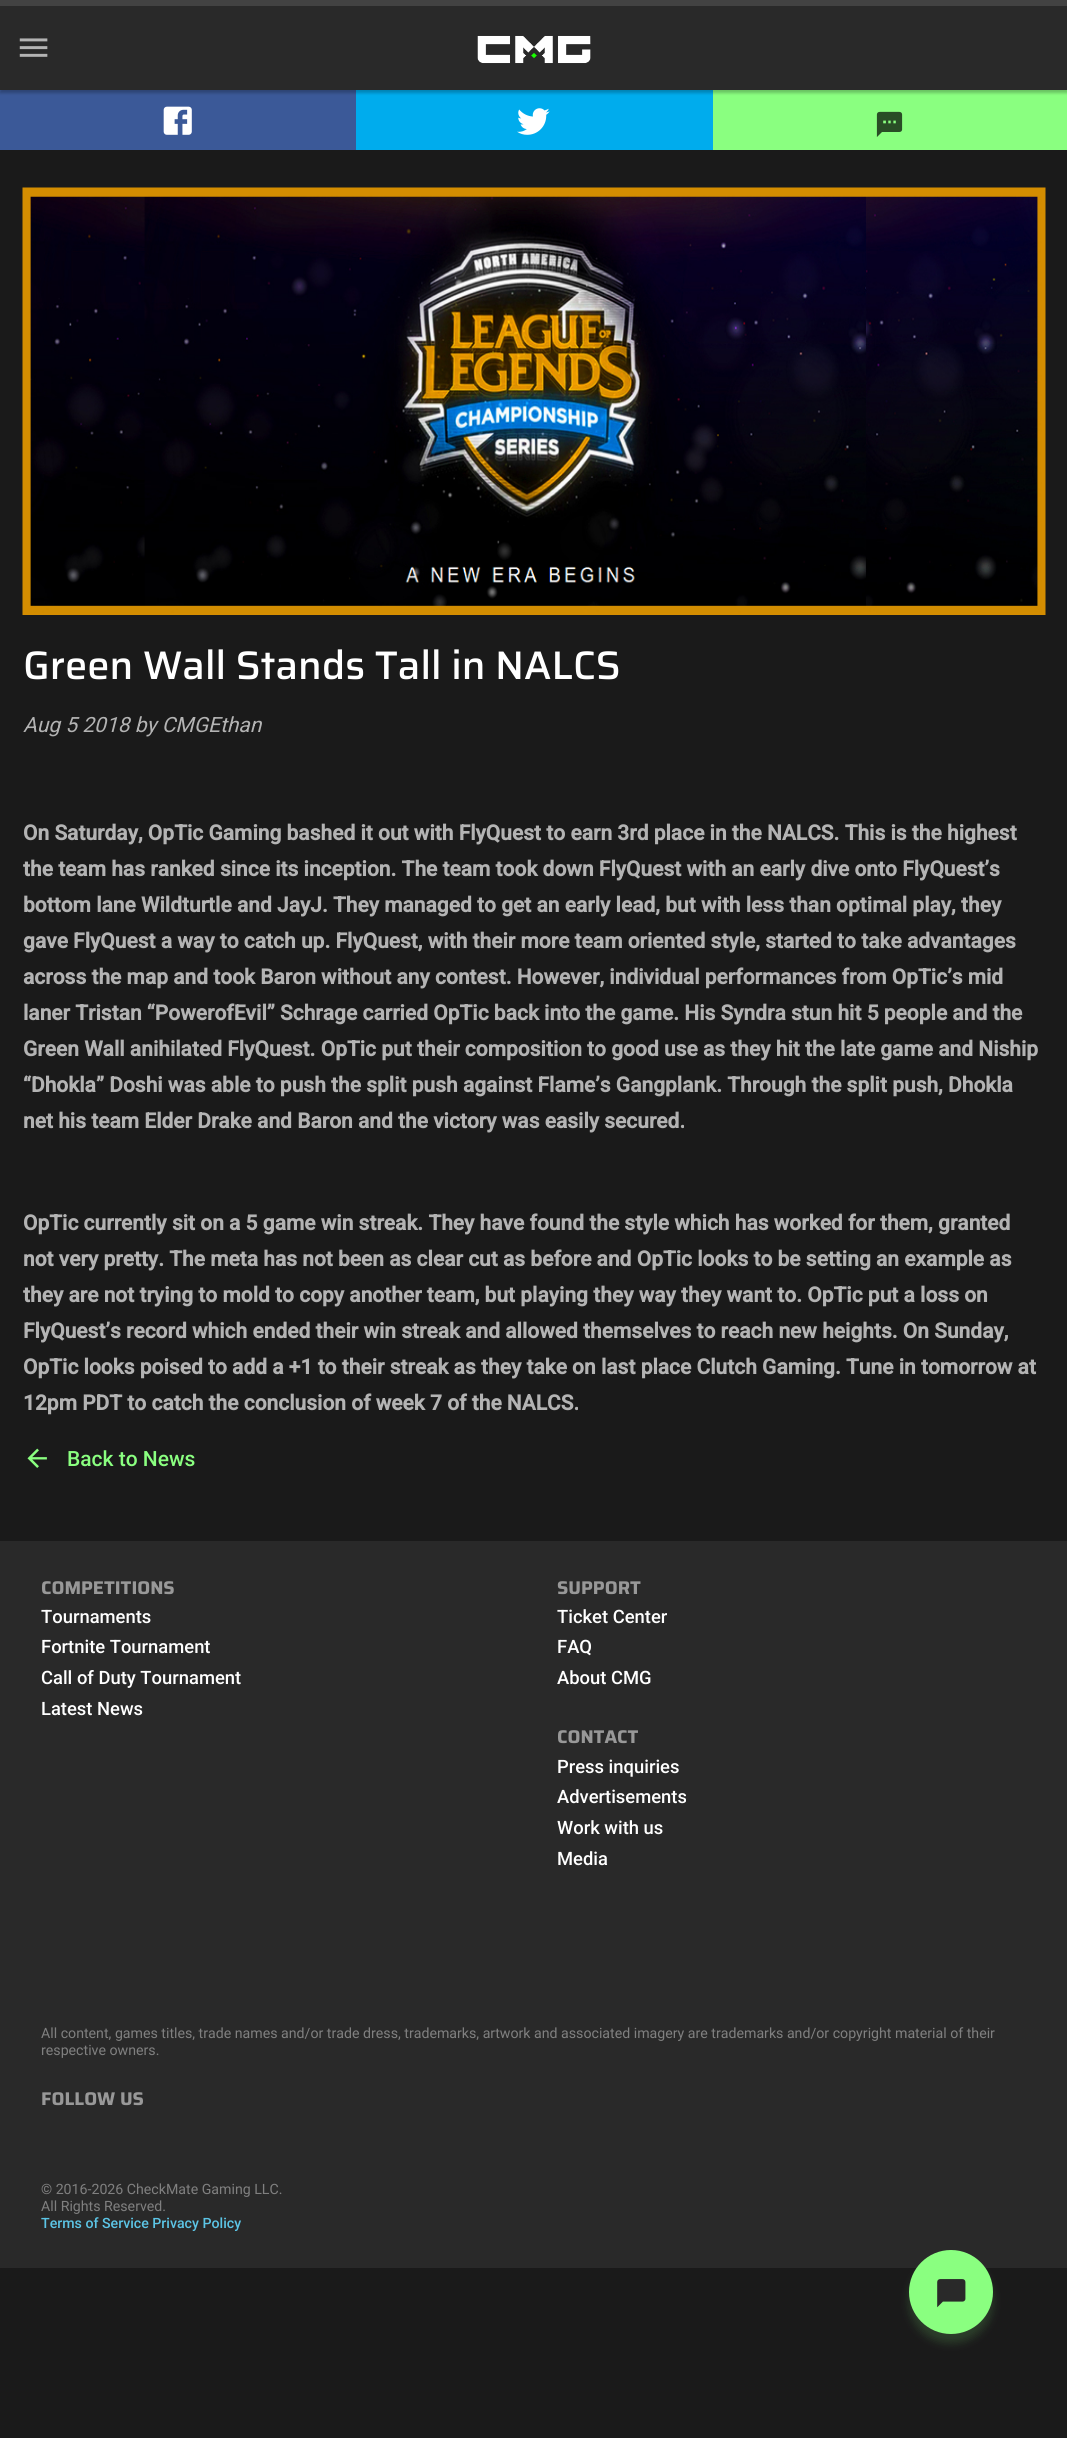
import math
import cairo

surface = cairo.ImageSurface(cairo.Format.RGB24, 1067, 2438)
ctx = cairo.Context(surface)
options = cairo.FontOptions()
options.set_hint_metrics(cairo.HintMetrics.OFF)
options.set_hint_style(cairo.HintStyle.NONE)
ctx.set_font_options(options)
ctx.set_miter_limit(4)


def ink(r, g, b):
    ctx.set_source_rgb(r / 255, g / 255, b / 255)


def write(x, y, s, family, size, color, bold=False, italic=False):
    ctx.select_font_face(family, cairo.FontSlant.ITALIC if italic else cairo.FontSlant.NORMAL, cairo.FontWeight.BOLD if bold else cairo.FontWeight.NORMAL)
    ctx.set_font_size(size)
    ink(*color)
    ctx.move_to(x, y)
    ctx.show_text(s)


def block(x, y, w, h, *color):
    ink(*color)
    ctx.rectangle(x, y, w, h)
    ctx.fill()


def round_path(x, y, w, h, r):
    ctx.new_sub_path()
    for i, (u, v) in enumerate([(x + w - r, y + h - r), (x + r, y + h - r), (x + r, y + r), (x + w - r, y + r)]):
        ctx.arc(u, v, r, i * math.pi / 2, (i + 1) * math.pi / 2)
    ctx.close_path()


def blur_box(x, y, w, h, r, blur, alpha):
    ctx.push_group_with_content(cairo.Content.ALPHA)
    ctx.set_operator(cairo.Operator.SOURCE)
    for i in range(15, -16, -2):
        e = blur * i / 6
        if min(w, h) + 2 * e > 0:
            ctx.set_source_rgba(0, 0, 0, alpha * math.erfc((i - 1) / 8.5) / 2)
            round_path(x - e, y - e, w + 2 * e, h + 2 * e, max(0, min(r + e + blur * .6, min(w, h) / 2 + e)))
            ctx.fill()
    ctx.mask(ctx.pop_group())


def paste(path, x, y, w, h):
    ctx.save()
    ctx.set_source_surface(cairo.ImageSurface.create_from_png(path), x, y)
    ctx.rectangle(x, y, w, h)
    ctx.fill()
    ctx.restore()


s1 = dict(family="Saira Medium", size=39.9, color=(255, 255, 255))
s2 = dict(family="Roboto", size=21, color=(179, 179, 179), italic=True)
s3 = dict(family="Roboto", size=21, color=(179, 179, 179), bold=True)
s4 = dict(family="Roboto Medium", size=21, color=(138, 255, 128))
s5 = dict(family="Saira", size=18.4, color=(152, 152, 152), bold=True)
s6 = dict(family="Roboto Medium", size=18.4, color=(255, 255, 255))
s7 = dict(family="Roboto", size=14.17, color=(128, 128, 128))
s8 = dict(family="Roboto Medium", size=14.17, color=(92, 197, 230))

ink(26, 26, 26)
ctx.paint()
block(0, 90, 356, 60, 59, 89, 152)
block(356, 90, 357, 60, 0, 172, 237)
block(713, 90, 354, 60, 138, 255, 128)
ink(0, 0, 0)
blur_box(0, 3, 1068, 90, 0, 1.5, 0.24)
block(0, 6, 1067, 84, 41, 41, 41)
block(0, 0, 1067, 6, 66, 66, 66)
paste("pic1.png", 19, 38, 29, 19)
paste("pic2.png", 477, 35, 114, 29)
paste("pic3.png", 163, 106, 29, 29)
paste("pic4.png", 517, 108, 33, 27)
paste("pic5.png", 876, 111, 27, 26)
paste("pic6.png", 22, 187, 1024, 428)
write(23, 679, "Green Wall Stands Tall in NALCS", **s1)
write(23, 732, "Aug 5 2018 by CMGEthan", **s2)
write(23, 840, "On Saturday, OpTic Gaming bashed it out with FlyQuest to earn 3rd place in the NALCS. This is the highest", **s3)
write(23, 876, "the team has ranked since its inception. The team took down FlyQuest with an early dive onto FlyQuest’s", **s3)
write(23, 912, "bottom lane Wildturtle and JayJ. They managed to get an early lead, but with less than optimal play, they", **s3)
write(23, 948, "gave FlyQuest a way to catch up. FlyQuest, with their more team oriented style, started to take advantages", **s3)
write(23, 984, "across the map and took Baron without any contest. However, individual performances from OpTic’s mid", **s3)
write(23, 1020, "laner Tristan “PowerofEvil” Schrage carried OpTic back into the game. His Syndra stun hit 5 people and the", **s3)
write(23, 1056, "Green Wall anihilated FlyQuest. OpTic put their composition to good use as they hit the late game and Niship", **s3)
write(23, 1092, "“Dhokla” Doshi was able to push the split push against Flame’s Gangplank. Through the split push, Dhokla", **s3)
write(23, 1128, "net his team Elder Drake and Baron and the victory was easily secured.", **s3)
write(23, 1230, "OpTic currently sit on a 5 game win streak. They have found the style which has worked for them, granted", **s3)
write(23, 1266, "not very pretty. The meta has not been as clear cut as before and OpTic looks to be setting an example as", **s3)
write(23, 1302, "they are not trying to mold to copy another team, but playing they way they want to. OpTic put a loss on", **s3)
write(23, 1338, "FlyQuest’s record which ended their win streak and allowed themselves to reach new heights. On Sunday,", **s3)
write(23, 1374, "OpTic looks poised to add a +1 to their streak as they take on last place Clutch Gaming. Tune in tomorrow at", **s3)
write(23, 1410, "12pm PDT to catch the conclusion of week 7 of the NALCS.", **s3)
paste("pic7.png", 27, 1448, 20, 20)
write(67, 1466, "Back to News", **s4)
block(0, 1541, 1067, 727, 41, 41, 41)
write(41, 1594, "COMPETITIONS", **s5)
write(41, 1623, "Tournaments", **s6)
write(41, 1653, "Fortnite Tournament", **s6)
write(41, 1684, "Call of Duty Tournament", **s6)
write(41, 1715, "Latest News", **s6)
write(557, 1594, "SUPPORT", **s5)
write(557, 1623, "Ticket Center", **s6)
write(557, 1653, "FAQ", **s6)
write(557, 1684, "About CMG", **s6)
write(557, 1743, "CONTACT", **s5)
write(557, 1773, "Press inquiries", **s6)
write(557, 1803, "Advertisements", **s6)
write(557, 1834, "Work with us", **s6)
write(557, 1865, "Media", **s6)
write(41, 2038, "All content, games titles, trade names and/or trade dress, trademarks, artwork and associated imagery are trademarks and/or copyright material of their", **s7)
write(41, 2055, "respective owners.", **s7)
write(41, 2105, "FOLLOW US", **s5)
write(41, 2194, "© 2016-2026 CheckMate Gaming LLC.", **s7)
write(41, 2211, "All Rights Reserved.", **s7)
write(41, 2228, "Terms of Service Privacy Policy", **s8)
ink(138, 255, 128)
blur_box(909, 2259, 84, 84, 42, 4.5, 0.16)
ink(138, 255, 128)
ctx.arc(951, 2292, 42, 0, 2 * math.pi)
ctx.fill()
paste("pic8.png", 937, 2279, 29, 29)
surface.write_to_png("screenshot.png")
